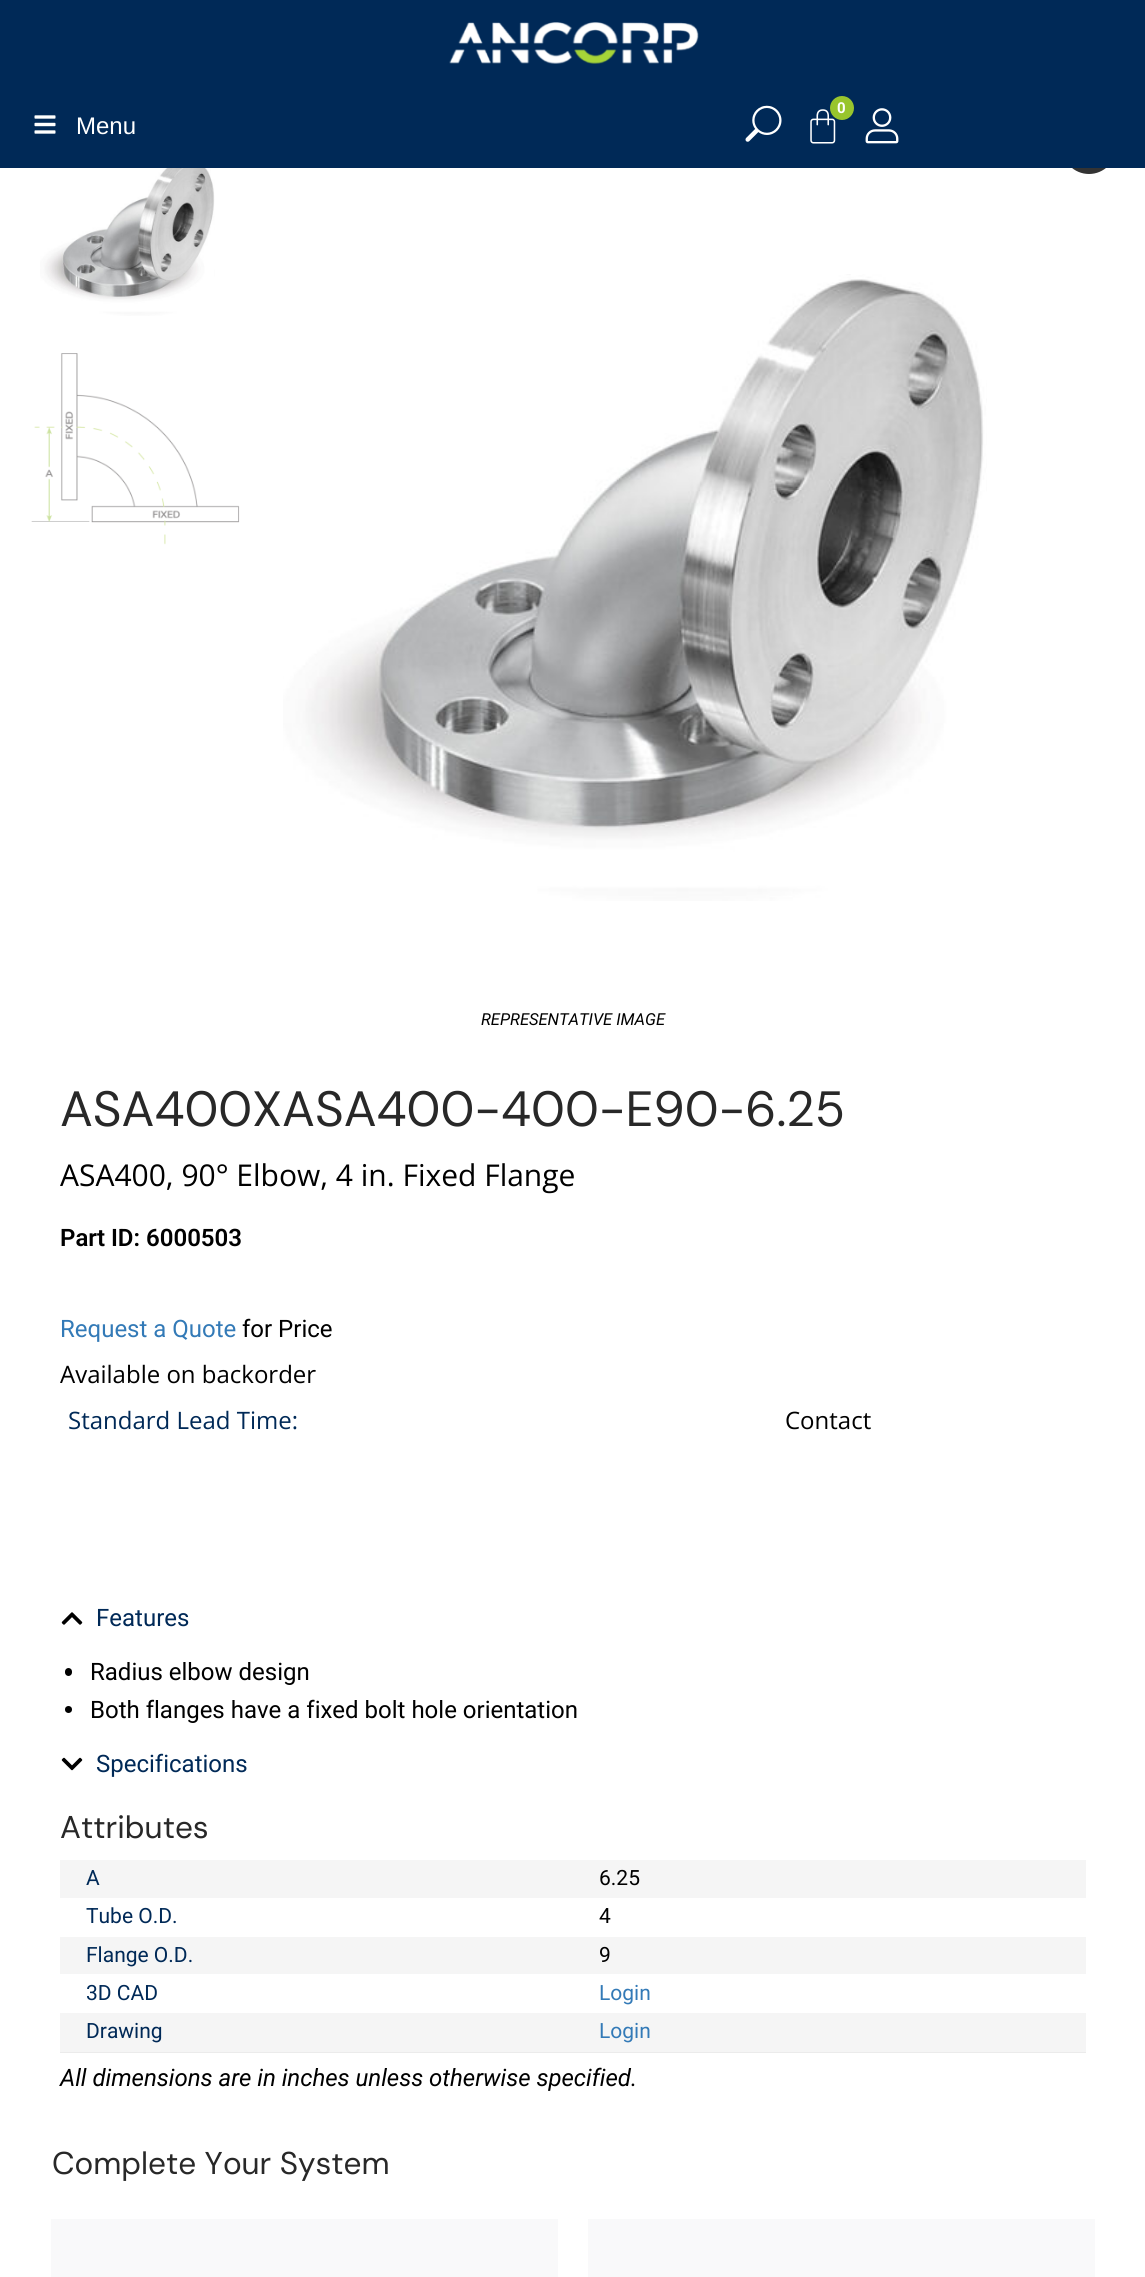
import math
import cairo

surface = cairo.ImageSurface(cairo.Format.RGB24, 1145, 2277)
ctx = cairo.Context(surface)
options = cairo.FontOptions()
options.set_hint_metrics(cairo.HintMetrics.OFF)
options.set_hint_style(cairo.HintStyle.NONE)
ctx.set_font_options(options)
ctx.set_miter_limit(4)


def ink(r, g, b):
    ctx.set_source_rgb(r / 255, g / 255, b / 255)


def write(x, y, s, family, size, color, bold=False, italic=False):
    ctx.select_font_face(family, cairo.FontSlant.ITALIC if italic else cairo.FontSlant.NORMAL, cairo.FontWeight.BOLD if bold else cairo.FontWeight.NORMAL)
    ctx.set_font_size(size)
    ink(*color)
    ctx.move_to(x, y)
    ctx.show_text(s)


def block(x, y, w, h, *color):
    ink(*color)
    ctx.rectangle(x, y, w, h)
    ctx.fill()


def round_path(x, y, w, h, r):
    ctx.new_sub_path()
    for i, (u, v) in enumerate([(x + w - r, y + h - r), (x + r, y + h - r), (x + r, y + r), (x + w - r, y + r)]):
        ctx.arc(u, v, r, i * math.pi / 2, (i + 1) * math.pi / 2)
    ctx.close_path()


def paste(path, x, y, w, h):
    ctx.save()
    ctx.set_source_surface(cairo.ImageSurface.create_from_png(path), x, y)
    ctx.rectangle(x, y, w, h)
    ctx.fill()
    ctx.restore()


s1 = dict(family="Roboto", size=15, color=(255, 255, 255), bold=True)
s2 = dict(family="Liberation Sans", size=24, color=(255, 255, 255))
s3 = dict(family="Roboto", size=16.5, color=(0, 0, 0), italic=True)
s4 = dict(family="DM Sans", size=49.5, color=(40, 40, 40))
s5 = dict(family="Open Sans", size=30, color=(0, 0, 0))
s6 = dict(family="Roboto SemiBold", size=24, color=(0, 0, 0))
s7 = dict(family="Roboto", size=24, color=(51, 122, 183))
s8 = dict(family="Roboto", size=24, color=(0, 0, 0))
s9 = dict(family="Open Sans", size=24, color=(0, 0, 0))
s10 = dict(family="Open Sans", size=24, color=(0, 41, 87))
s11 = dict(family="Roboto", size=24, color=(0, 41, 87))
s12 = dict(family="DM Sans", size=31.5, color=(40, 40, 40))
s13 = dict(family="Roboto", size=21, color=(0, 41, 87))
s14 = dict(family="Roboto", size=21, color=(0, 0, 0))
s15 = dict(family="Roboto", size=21, color=(51, 122, 183))
s16 = dict(family="Roboto", size=24, color=(0, 0, 0), italic=True)

ink(255, 255, 255)
ctx.paint()
ink(51, 51, 51)
ctx.arc(1089, 147, 27, 0, 2 * math.pi)
ctx.fill()
block(0, 0, 1145, 168, 0, 41, 87)
paste("pic1.png", 449, 22, 250, 42)
paste("pic2.png", 745, 105, 37, 37)
paste("pic3.png", 810, 109, 26, 35)
ink(152, 197, 45)
ctx.arc(842, 108, 12, 0, 2 * math.pi)
ctx.fill()
write(837, 113, "0", **s1)
paste("pic4.png", 865, 108, 34, 36)
paste("pic5.png", 34, 115, 22, 19)
write(76, 134, "Menu", **s2)
paste("pic6.png", 40, 168, 175, 148)
paste("pic7.png", 31, 353, 209, 192)
paste("pic8.png", 283, 274, 704, 627)
write(481, 1025, "REPRESENTATIVE IMAGE", **s3)
write(60, 1126, "ASA400XASA400-400-E90-6.25", **s4)
write(60, 1186, "ASA400, 90° Elbow, 4 in. Fixed Flange", **s5)
write(60, 1246, "Part ID: 6000503", **s6)
write(60, 1337, "Request a Quote", **s7)
write(242, 1337, "for Price", **s8)
write(60, 1383, "Available on backorder", **s9)
write(68, 1429, "Standard Lead Time:", **s10)
write(785, 1429, "Contact", **s9)
paste("pic9.png", 61, 1612, 22, 13)
write(96, 1626, "Features", **s11)
ink(0, 0, 0)
round_path(65, 1668, 7, 8, 3.5)
ctx.fill()
write(90, 1680, "Radius elbow design", **s8)
ctx.new_path()
ctx.arc(68.5, 1709.5, 3.5, 0, 2 * math.pi)
ctx.fill()
write(90, 1718, "Both flanges have a fixed bolt hole orientation", **s8)
paste("pic10.png", 61, 1757, 22, 14)
write(96, 1772, "Specifications", **s11)
write(60, 1838, "Attributes", **s12)
block(60, 1860, 1026, 38, 245, 245, 245)
write(86, 1885, "A", **s13)
write(599, 1885, "6.25", **s14)
write(86, 1923, "Tube O.D.", **s13)
write(599, 1923, "4", **s14)
block(60, 1937, 1026, 37, 245, 245, 245)
write(86, 1962, "Flange O.D.", **s13)
write(599, 1962, "9", **s14)
write(86, 2000, "3D CAD", **s13)
write(599, 2000, "Login", **s15)
block(60, 2052, 1026, 1, 235, 235, 235)
block(60, 2013, 1026, 39, 245, 245, 245)
write(86, 2038, "Drawing", **s13)
write(599, 2038, "Login", **s15)
write(60, 2086, "All dimensions are in inches unless otherwise specified.", **s16)
write(52, 2174, "Complete Your System", **s12)
block(51, 2219, 507, 58, 249, 249, 250)
block(588, 2219, 507, 58, 249, 249, 250)
surface.write_to_png("screenshot.png")
